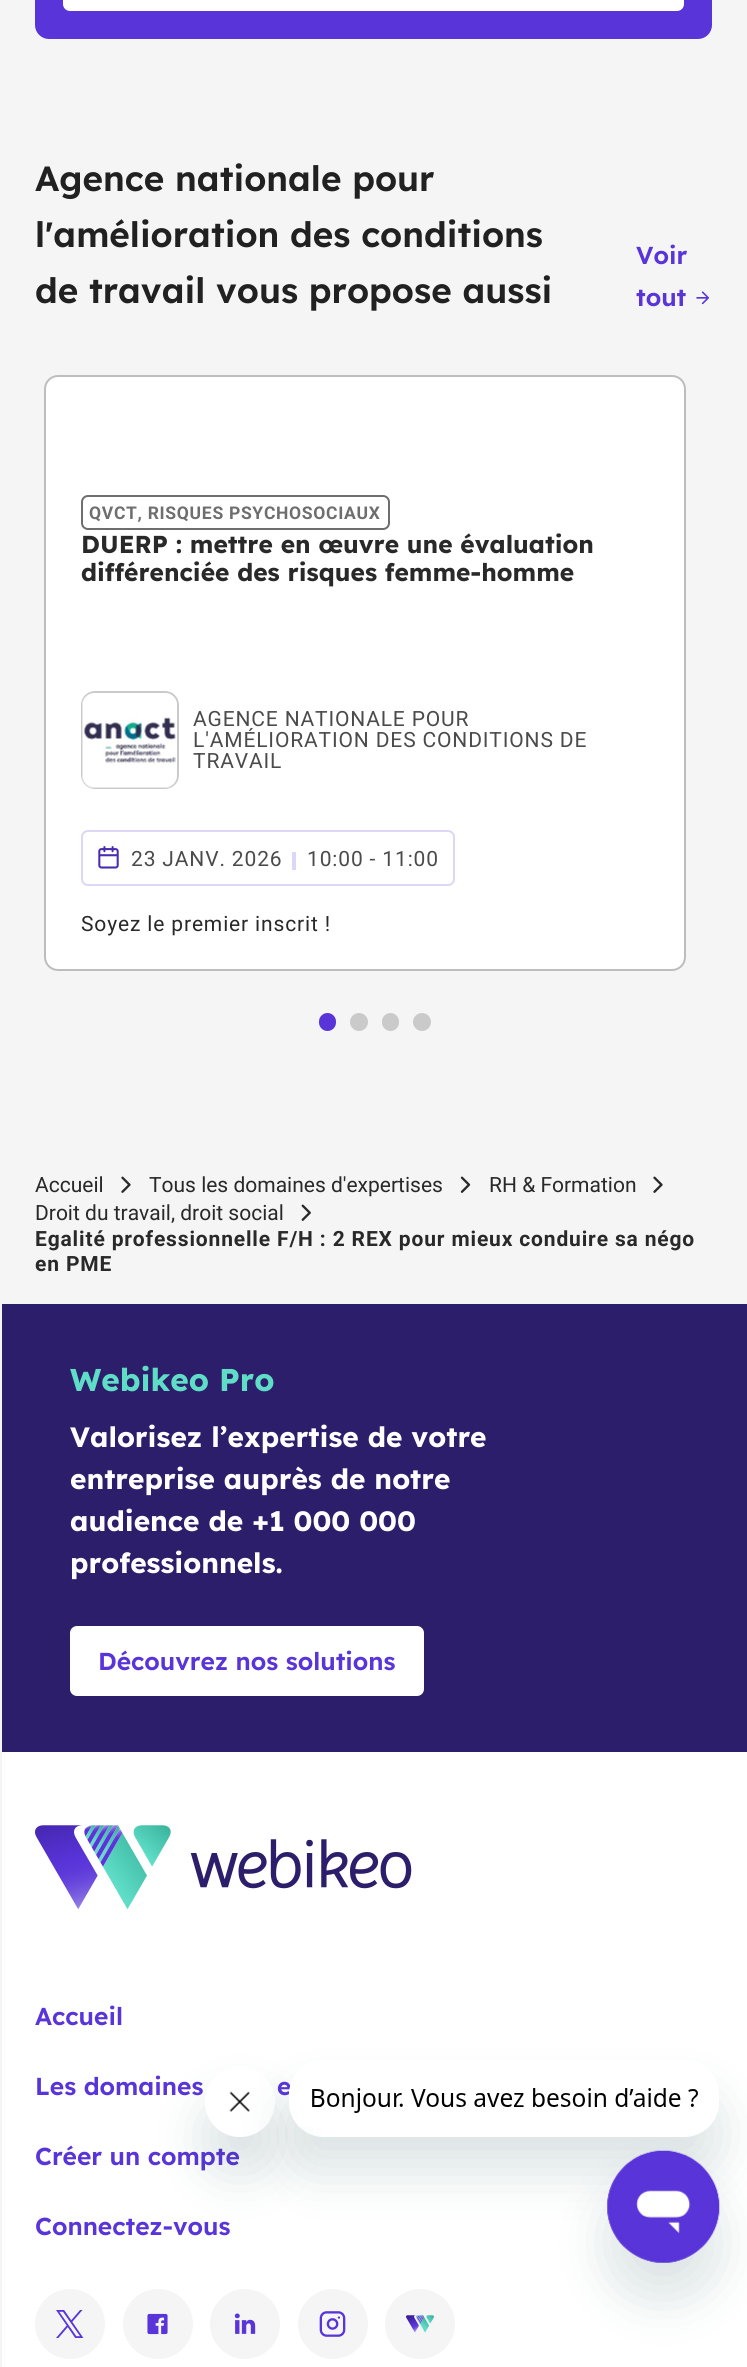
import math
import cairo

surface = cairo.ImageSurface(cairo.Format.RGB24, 747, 2367)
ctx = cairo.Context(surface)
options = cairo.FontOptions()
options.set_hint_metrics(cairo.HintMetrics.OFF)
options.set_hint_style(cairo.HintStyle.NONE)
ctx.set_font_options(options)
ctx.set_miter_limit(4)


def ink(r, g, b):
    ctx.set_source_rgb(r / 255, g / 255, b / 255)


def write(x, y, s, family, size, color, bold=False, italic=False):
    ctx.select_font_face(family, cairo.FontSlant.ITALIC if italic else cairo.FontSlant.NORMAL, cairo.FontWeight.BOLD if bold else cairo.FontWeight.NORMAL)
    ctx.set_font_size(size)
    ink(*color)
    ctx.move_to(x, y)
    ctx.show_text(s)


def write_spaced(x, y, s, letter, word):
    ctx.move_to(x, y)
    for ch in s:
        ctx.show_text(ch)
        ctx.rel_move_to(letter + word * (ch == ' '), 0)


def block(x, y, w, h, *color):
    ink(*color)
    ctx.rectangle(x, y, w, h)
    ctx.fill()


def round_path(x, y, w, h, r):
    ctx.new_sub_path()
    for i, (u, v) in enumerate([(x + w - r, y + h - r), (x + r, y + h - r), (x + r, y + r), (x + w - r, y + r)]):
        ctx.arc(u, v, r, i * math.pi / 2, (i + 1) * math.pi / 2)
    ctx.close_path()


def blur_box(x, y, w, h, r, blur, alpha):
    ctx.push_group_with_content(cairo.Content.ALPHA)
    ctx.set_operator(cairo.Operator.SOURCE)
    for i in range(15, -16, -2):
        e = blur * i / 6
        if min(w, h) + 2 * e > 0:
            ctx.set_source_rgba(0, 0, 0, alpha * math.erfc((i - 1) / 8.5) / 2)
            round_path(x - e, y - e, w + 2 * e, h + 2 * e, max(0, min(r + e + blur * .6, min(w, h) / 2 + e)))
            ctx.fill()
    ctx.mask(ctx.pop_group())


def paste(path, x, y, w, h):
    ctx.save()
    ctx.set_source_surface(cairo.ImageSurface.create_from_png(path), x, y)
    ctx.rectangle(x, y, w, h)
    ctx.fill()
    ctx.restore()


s1 = dict(family="Lexend SemiBold", size=35, color=(33, 33, 33))
s2 = dict(family="Lexend SemiBold", size=24.5, color=(89, 52, 217))
s3 = dict(family="Lexend", size=24.5, color=(41, 41, 41), bold=True)
s4 = dict(family="Roboto", size=21, color=(41, 41, 41))
s5 = dict(family="Lexend", size=31.5, color=(95, 221, 199), bold=True)
s6 = dict(family="Lexend", size=28, color=(255, 255, 255), bold=True)

ink(245, 245, 245)
ctx.paint()
ink(89, 52, 217)
round_path(35, -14, 677, 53, 14)
ctx.fill()
ink(255, 255, 255)
round_path(63, -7, 621, 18, 7)
ctx.fill()
write(35, 191, "Agence nationale pour", **s1)
write(35, 247, "l'amélioration des conditions", **s1)
write(35, 303, "de travail vous propose aussi", **s1)
write(636, 264, "Voir", **s2)
write(636, 306, "tout", **s2)
paste("pic1.png", 696, 291, 13, 14)
ink(255, 255, 255)
round_path(45, 376, 640, 594, 13)
ctx.fill_preserve()
ink(189, 189, 189)
ctx.stroke()
round_path(82, 496, 307, 33, 6)
ink(110, 110, 110)
ctx.stroke()
ctx.select_font_face("Roboto", cairo.FontSlant.NORMAL, cairo.FontWeight.BOLD)
ctx.set_font_size(17.5)
write_spaced(89, 519, "QVCT, RISQUES PSYCHOSOCIAUX", 0.7, 0)
write(81, 553, "DUERP : mettre en œuvre une évaluation", **s3)
write(81, 581, "différenciée des risques femme-homme", **s3)
round_path(82, 692, 96, 96, 13)
ink(202, 202, 202)
ctx.stroke()
paste("pic2.png", 82, 693, 95, 95)
ctx.select_font_face("Roboto")
ctx.set_font_size(21)
ink(75, 75, 75)
write_spaced(193, 726, "AGENCE NATIONALE POUR", 0.85, 0)
write_spaced(193, 747, "L'AMÉLIORATION DES CONDITIONS DE", 0.85, 0)
write_spaced(193, 768, "TRAVAIL", 0.85, 0)
round_path(82, 831, 372, 54, 6)
ink(222, 214, 247)
ctx.stroke()
paste("pic3.png", 98, 846, 21, 23)
ink(75, 75, 75)
write_spaced(131, 866, "23 JANV. 2026", 0.85, 0)
block(292, 852, 4, 18, 222, 214, 247)
ink(75, 75, 75)
write_spaced(307, 866, "10:00 - 11:00", 0.85, 0)
ink(41, 41, 41)
write_spaced(81, 931, "Soyez le premier inscrit !", 0.85, 0)
ink(89, 52, 217)
round_path(319, 1013, 17, 18, 8.5)
ctx.fill()
ink(202, 202, 202)
ctx.arc(359, 1022, 9, 0, 2 * math.pi)
ctx.fill()
round_path(382, 1013, 17, 18, 8.5)
ctx.fill()
ctx.arc(422, 1022, 9, 0, 2 * math.pi)
ctx.fill()
write(35, 1192, "Accueil", **s4)
paste("pic4.png", 121, 1176, 10, 17)
write(149, 1192, "Tous les domaines d'expertises", **s4)
paste("pic5.png", 460, 1176, 11, 17)
write(489, 1192, "RH & Formation", **s4)
paste("pic4.png", 653, 1176, 10, 17)
write(35, 1220, "Droit du travail, droit social", **s4)
paste("pic6.png", 301, 1204, 10, 17)
ctx.select_font_face("Roboto", cairo.FontSlant.NORMAL, cairo.FontWeight.BOLD)
write_spaced(35, 1246, "Egalité professionnelle F/H : 2 REX pour mieux conduire sa négo", 0.85, 0)
write_spaced(35, 1271, "en PME", 0.85, 0)
block(2, 1304, 745, 448, 44, 30, 106)
write(70, 1391, "Webikeo Pro", **s5)
write(70, 1447, "Valorisez l’expertise de votre", **s6)
write(70, 1489, "entreprise auprès de notre", **s6)
write(70, 1531, "audience de +1 000 000", **s6)
write(70, 1573, "professionnels.", **s6)
round_path(70, 1626, 354, 70, 7)
ctx.fill()
write(98, 1670, "Découvrez nos solutions", **s2)
block(2, 1752, 745, 615, 255, 255, 255)
paste("pic7.png", 35, 1825, 377, 85)
write(35, 2025, "Accueil", **s2)
write(35, 2095, "Les domaines", **s2)
write(277, 2095, "e", **s2)
write(35, 2165, "Créer un compte", **s2)
write(35, 2235, "Connectez-vous", **s2)
ink(245, 245, 245)
ctx.new_path()
ctx.arc(70, 2324, 35, 0, 2 * math.pi)
ctx.fill()
paste("pic8.png", 56, 2310, 28, 28)
ctx.arc(158, 2324, 35, 0, 2 * math.pi)
ctx.fill()
paste("pic9.png", 147, 2313, 21, 22)
ctx.arc(245, 2324, 35, 0, 2 * math.pi)
ctx.fill()
paste("pic10.png", 234, 2313, 22, 21)
ctx.arc(333, 2324, 35, 0, 2 * math.pi)
ctx.fill()
paste("pic11.png", 319, 2311, 27, 26)
ctx.arc(420, 2324, 35, 0, 2 * math.pi)
ctx.fill()
paste("pic12.png", 406, 2315, 28, 18)
ctx.save()
ctx.set_fill_rule(cairo.FillRule.EVEN_ODD)
ctx.new_path()
ctx.move_to(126, 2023)
ctx.line_to(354, 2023)
ctx.line_to(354, 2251)
ctx.line_to(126, 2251)
ctx.close_path()
ctx.move_to(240, 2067)
ctx.curve_to(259.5, 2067, 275, 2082.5, 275, 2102)
ctx.curve_to(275, 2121.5, 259.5, 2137, 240, 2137)
ctx.curve_to(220.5, 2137, 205, 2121.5, 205, 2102)
ctx.curve_to(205, 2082.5, 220.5, 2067, 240, 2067)
ctx.close_path()
ctx.clip()
ink(23, 73, 77)
blur_box(205, 2102, 70, 70, 35, 26, 0.15)
ctx.restore()
paste("pic14.png", 211, 2076, 63, 36)
ctx.save()
ctx.set_fill_rule(cairo.FillRule.EVEN_ODD)
ctx.new_path()
ctx.move_to(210, 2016)
ctx.line_to(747, 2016)
ctx.line_to(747, 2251)
ctx.line_to(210, 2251)
ctx.close_path()
ctx.move_to(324, 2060)
ctx.line_to(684, 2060)
ctx.curve_to(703.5, 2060, 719, 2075.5, 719, 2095)
ctx.line_to(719, 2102)
ctx.curve_to(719, 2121.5, 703.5, 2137, 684, 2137)
ctx.line_to(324, 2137)
ctx.curve_to(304.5, 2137, 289, 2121.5, 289, 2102)
ctx.line_to(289, 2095)
ctx.curve_to(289, 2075.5, 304.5, 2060, 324, 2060)
ctx.close_path()
ctx.clip()
ink(23, 73, 77)
blur_box(289, 2095, 430, 77, 35, 26, 0.15)
ctx.restore()
paste("pic13.png", 289, 2075, 409, 52)
ink(23, 73, 77)
blur_box(607, 2186, 112, 112, 56, 26, 0.15)
paste("pic15.png", 607, 2150, 113, 113)
surface.write_to_png("screenshot.png")
